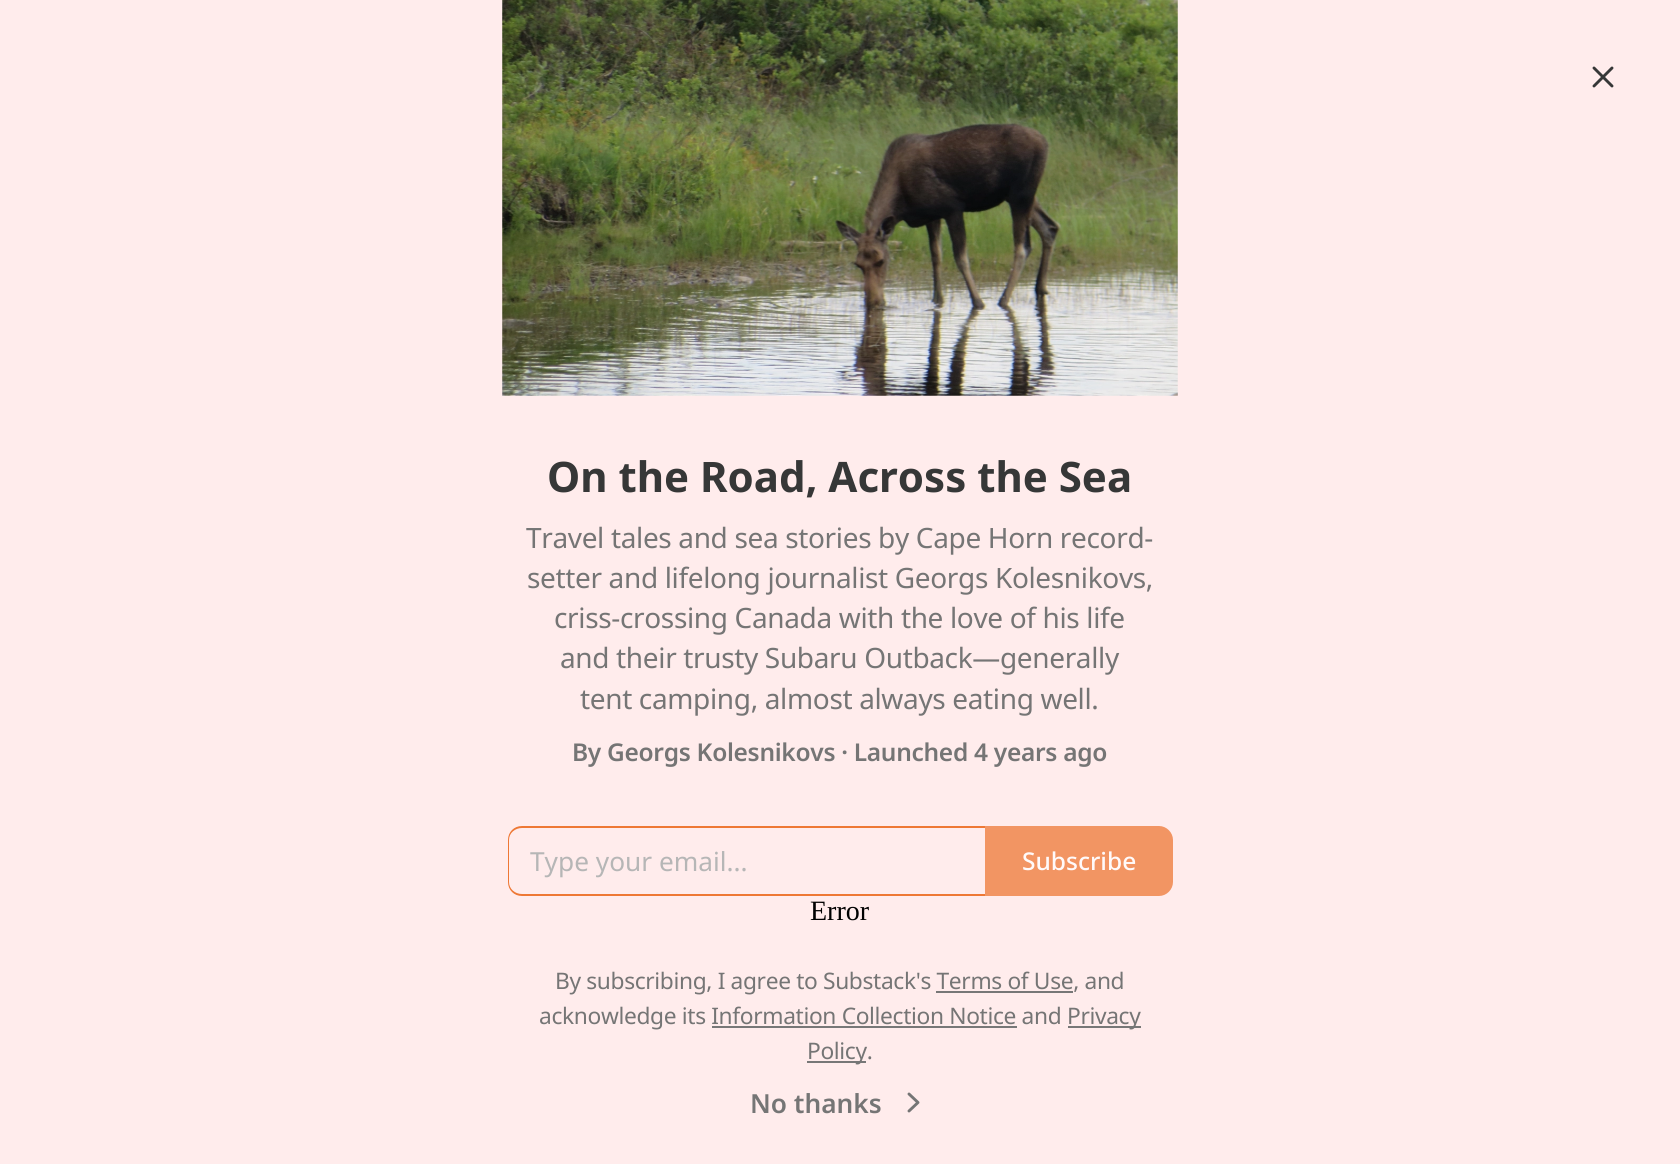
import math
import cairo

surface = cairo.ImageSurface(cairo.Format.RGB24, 1680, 1164)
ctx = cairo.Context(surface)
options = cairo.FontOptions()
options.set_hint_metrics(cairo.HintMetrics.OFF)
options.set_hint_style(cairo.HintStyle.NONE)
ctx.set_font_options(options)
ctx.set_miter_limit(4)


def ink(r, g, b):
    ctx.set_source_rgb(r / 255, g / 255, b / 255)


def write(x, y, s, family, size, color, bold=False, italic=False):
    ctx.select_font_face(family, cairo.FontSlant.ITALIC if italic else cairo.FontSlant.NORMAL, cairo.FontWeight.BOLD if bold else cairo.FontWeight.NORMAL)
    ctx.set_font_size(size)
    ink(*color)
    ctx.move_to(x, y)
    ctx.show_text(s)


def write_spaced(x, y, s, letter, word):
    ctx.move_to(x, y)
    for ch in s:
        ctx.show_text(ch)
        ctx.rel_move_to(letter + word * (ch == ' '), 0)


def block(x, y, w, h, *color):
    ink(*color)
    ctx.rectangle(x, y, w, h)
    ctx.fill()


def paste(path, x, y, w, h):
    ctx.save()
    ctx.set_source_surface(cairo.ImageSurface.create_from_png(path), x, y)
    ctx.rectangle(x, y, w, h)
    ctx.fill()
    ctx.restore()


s1 = dict(family="Noto Sans", size=42, color=(54, 55, 55), bold=True)
s2 = dict(family="Noto Sans", size=26.25, color=(182, 182, 182))
s3 = dict(family="Noto Sans Medium", size=24.5, color=(255, 250, 250))
s4 = dict(family="Liberation Serif", size=28, color=(0, 0, 0))
s5 = dict(family="Noto Sans SemiBold", size=26.25, color=(117, 117, 117))

ink(255, 236, 236)
ctx.paint()
paste("pic1.png", 502, 0, 676, 396)
ctx.new_path()
ctx.move_to(1612, 68)
ctx.line_to(1594, 86)
ctx.move_to(1594, 68)
ctx.line_to(1612, 86)
ink(54, 55, 55)
ctx.set_line_width(2.9)
ctx.set_line_cap(cairo.LineCap.ROUND)
ctx.set_line_join(cairo.LineJoin.ROUND)
ctx.stroke()
write(547, 492, "On the Road, Across the Sea", **s1)
ctx.select_font_face("Noto Sans")
ctx.set_font_size(28)
ink(117, 117, 117)
write_spaced(526, 548, "Travel tales and sea stories by Cape Horn record-", -0.35, 0)
write_spaced(527, 588, "setter and lifelong journalist Georgs Kolesnikovs,", -0.35, 0)
write_spaced(554, 628, "criss-crossing Canada with the love of his life", -0.35, 0)
write_spaced(560, 668, "and their trusty Subaru Outback—generally", -0.35, 0)
write_spaced(580, 709, "tent camping, almost always eating well.", -0.35, 0)
ctx.select_font_face("Noto Sans SemiBold")
ctx.set_font_size(24.5)
write_spaced(572, 761, "By Georgs Kolesnikovs · Launched 4 years ago", -0.3, 0)
ink(238, 120, 53)
ctx.set_fill_rule(cairo.FillRule.EVEN_ODD)
ctx.new_path()
ctx.move_to(522, 826)
ctx.line_to(985, 826)
ctx.line_to(985, 896)
ctx.line_to(522, 896)
ctx.curve_to(514, 896, 508, 890, 508, 882)
ctx.line_to(508, 840)
ctx.curve_to(508, 832, 514, 826, 522, 826)
ctx.close_path()
ctx.move_to(522, 828)
ctx.line_to(985, 828)
ctx.line_to(985, 894)
ctx.line_to(522, 894)
ctx.curve_to(515, 894, 509, 889, 509, 882)
ctx.line_to(509, 840)
ctx.curve_to(509, 833, 515, 828, 522, 828)
ctx.close_path()
ctx.fill()
write(530, 871, "Type your email...", **s2)
ink(242, 149, 99)
ctx.new_path()
ctx.move_to(986, 827)
ctx.line_to(1159, 827)
ctx.curve_to(1166, 827, 1172, 833, 1172, 840)
ctx.line_to(1172, 882)
ctx.curve_to(1172, 889, 1166, 895, 1159, 895)
ctx.line_to(986, 895)
ctx.close_path()
ctx.fill_preserve()
ctx.set_line_width(2)
ctx.set_line_cap(cairo.LineCap.BUTT)
ctx.set_line_join(cairo.LineJoin.MITER)
ctx.stroke()
write(1022, 870, "Subscribe", **s3)
write(810, 920, "Error", **s4)
ctx.select_font_face("Noto Sans")
ctx.set_font_size(22.75)
ink(117, 117, 117)
write_spaced(555, 989, "By subscribing, I agree to Substack's Terms of Use, and", -0.35, 0)
block(936, 991, 137, 2, 119, 119, 119)
ink(117, 117, 117)
write_spaced(539, 1024, "acknowledge its Information Collection Notice and", -0.35, 0)
block(1068, 1026, 73, 2, 119, 119, 119)
ink(117, 117, 117)
write_spaced(1067, 1024, "Privacy", -0.35, 0)
block(712, 1026, 305, 2, 119, 119, 119)
block(807, 1061, 59, 2, 119, 119, 119)
ink(117, 117, 117)
write_spaced(807, 1059, "Policy.", -0.35, 0)
write(750, 1113, "No thanks", **s5)
ctx.new_path()
ctx.move_to(909, 1111)
ctx.line_to(918, 1102.5)
ctx.line_to(909, 1094)
ctx.set_line_width(2.9)
ctx.set_line_cap(cairo.LineCap.ROUND)
ctx.set_line_join(cairo.LineJoin.ROUND)
ctx.stroke()
surface.write_to_png("screenshot.png")
